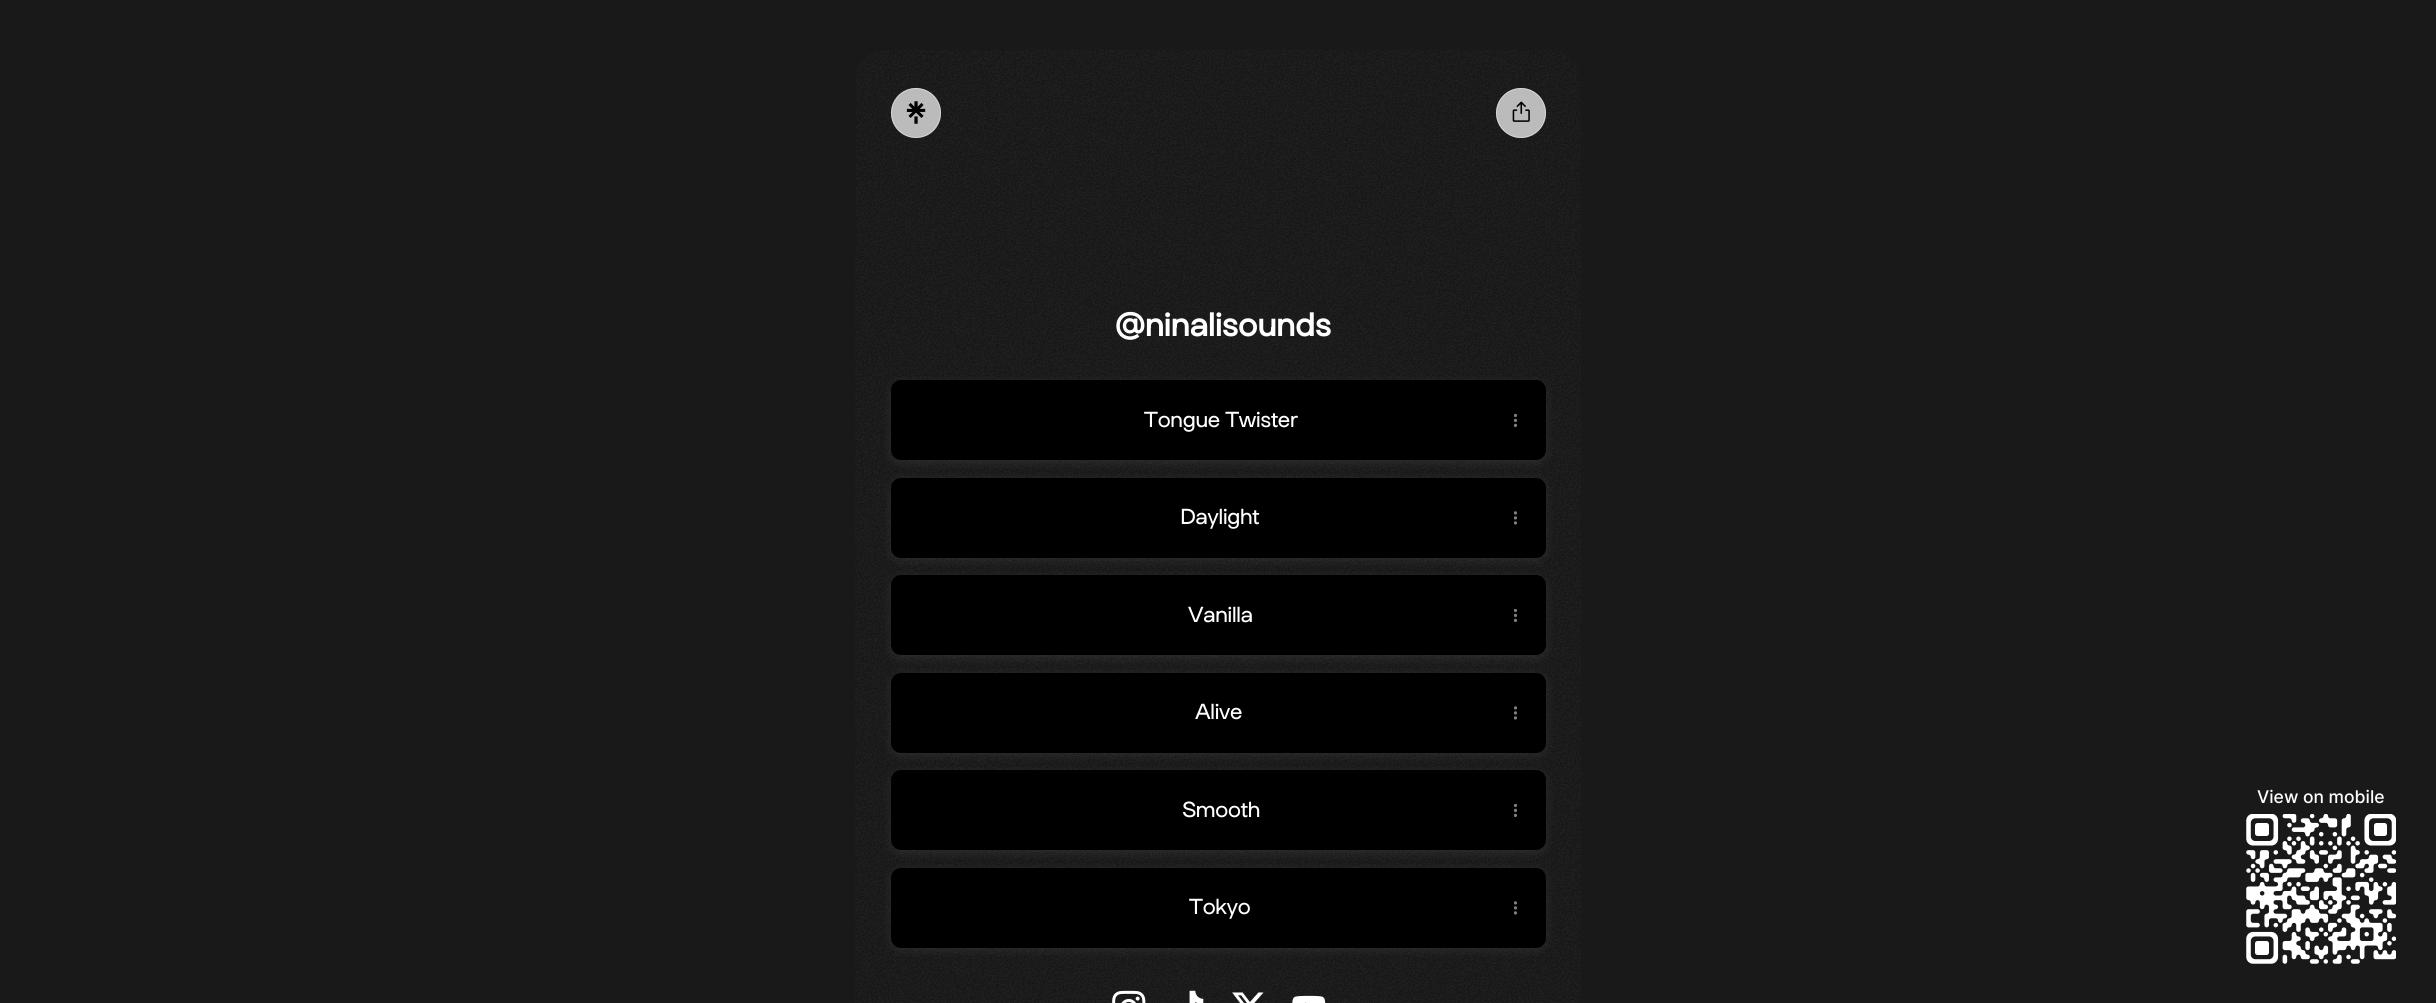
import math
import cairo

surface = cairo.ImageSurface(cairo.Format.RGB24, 2436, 1003)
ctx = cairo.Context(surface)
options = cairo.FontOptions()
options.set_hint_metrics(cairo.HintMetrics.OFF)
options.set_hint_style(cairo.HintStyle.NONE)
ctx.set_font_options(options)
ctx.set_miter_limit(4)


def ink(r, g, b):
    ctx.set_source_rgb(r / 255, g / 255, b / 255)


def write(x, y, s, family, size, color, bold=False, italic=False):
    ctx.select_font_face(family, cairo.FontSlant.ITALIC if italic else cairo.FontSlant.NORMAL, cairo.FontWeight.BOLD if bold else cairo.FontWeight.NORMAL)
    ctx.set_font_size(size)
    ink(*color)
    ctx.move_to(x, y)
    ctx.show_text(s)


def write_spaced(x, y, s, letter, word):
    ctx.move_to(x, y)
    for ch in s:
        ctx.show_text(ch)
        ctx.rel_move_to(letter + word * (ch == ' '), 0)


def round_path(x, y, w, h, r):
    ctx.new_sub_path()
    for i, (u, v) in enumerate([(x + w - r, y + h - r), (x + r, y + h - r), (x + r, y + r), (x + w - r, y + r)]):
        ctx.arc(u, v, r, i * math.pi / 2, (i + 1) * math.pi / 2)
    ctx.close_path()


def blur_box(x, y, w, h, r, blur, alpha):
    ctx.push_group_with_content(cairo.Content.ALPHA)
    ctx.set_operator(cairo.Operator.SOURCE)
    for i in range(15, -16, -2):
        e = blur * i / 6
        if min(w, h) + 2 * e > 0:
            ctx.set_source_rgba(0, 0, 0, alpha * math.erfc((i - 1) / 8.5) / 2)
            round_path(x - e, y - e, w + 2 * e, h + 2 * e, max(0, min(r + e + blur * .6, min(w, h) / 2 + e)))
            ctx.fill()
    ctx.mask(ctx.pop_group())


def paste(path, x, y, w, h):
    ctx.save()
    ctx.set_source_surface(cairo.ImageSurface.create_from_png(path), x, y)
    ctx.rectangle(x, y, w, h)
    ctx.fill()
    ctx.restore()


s1 = dict(family="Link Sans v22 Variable", size=30, color=(255, 255, 255), bold=True)
s2 = dict(family="Inter Medium", size=17.5, color=(255, 255, 255))

ink(25, 25, 25)
ctx.paint()
paste("pic3.png", 855, 50, 726, 953)
ctx.set_source_rgba(1, 1, 1, 0.7)
ctx.arc(916, 113, 25, 0, 2 * math.pi)
ctx.fill()
ctx.arc(916, 113, 24.5, 0, 2 * math.pi)
ctx.set_source_rgba(1, 1, 1, 0.4)
ctx.set_line_width(1)
ctx.stroke()
paste("pic1.png", 906, 101, 20, 23)
ctx.set_source_rgba(1, 1, 1, 0.7)
ctx.arc(1521, 113, 25, 0, 2 * math.pi)
ctx.fill()
ctx.arc(1521, 113, 24.5, 0, 2 * math.pi)
ctx.set_source_rgba(1, 1, 1, 0.4)
ctx.stroke()
paste("pic2.png", 1512, 101, 18, 21)
write(1115, 336, "@ninalisounds", **s1)
ink(255, 255, 255)
blur_box(891, 383, 655, 80, 10, 5, 0.08)
ink(0, 0, 0)
round_path(891, 380, 655, 80, 10)
ctx.fill()
ctx.select_font_face("Link Sans v22 Variable")
ctx.set_font_size(20)
ink(255, 255, 255)
write_spaced(1144, 427, "Tongue Twister", -0.25, -1)
paste("pic4.png", 1514, 414, 3, 13)
ink(255, 255, 255)
blur_box(891, 480, 655, 80, 10, 5, 0.08)
ink(0, 0, 0)
round_path(891, 478, 655, 80, 10)
ctx.fill()
ink(255, 255, 255)
write_spaced(1180, 524, "Daylight", -0.25, 0)
paste("pic5.png", 1514, 511, 3, 14)
ink(255, 255, 255)
blur_box(891, 578, 655, 80, 10, 5, 0.08)
ink(0, 0, 0)
round_path(891, 575, 655, 80, 10)
ctx.fill()
ink(255, 255, 255)
write_spaced(1188, 622, "Vanilla", -0.25, 0)
paste("pic4.png", 1514, 609, 3, 13)
ink(255, 255, 255)
blur_box(891, 675, 655, 80, 10, 5, 0.08)
ink(0, 0, 0)
round_path(891, 673, 655, 80, 10)
ctx.fill()
ink(255, 255, 255)
write_spaced(1195, 719, "Alive", -0.25, 0)
paste("pic5.png", 1514, 706, 3, 14)
ink(255, 255, 255)
blur_box(891, 773, 655, 80, 10, 5, 0.08)
ink(0, 0, 0)
round_path(891, 770, 655, 80, 10)
ctx.fill()
ink(255, 255, 255)
write_spaced(1182, 817, "Smooth", -0.25, 0)
paste("pic4.png", 1514, 804, 3, 13)
ink(255, 255, 255)
blur_box(891, 870, 655, 80, 10, 5, 0.08)
ink(0, 0, 0)
round_path(891, 868, 655, 80, 10)
ctx.fill()
ink(255, 255, 255)
write_spaced(1189, 914, "Tokyo", -0.25, 0)
paste("pic5.png", 1514, 901, 3, 14)
paste("pic6.png", 1112, 990, 34, 13)
paste("pic7.png", 1189, 990, 15, 13)
paste("pic8.png", 1232, 992, 32, 11)
paste("pic9.png", 1292, 995, 34, 8)
write(2257, 803, "View on mobile", **s2)
paste("pic10.png", 2246, 814, 150, 150)
surface.write_to_png("screenshot.png")
